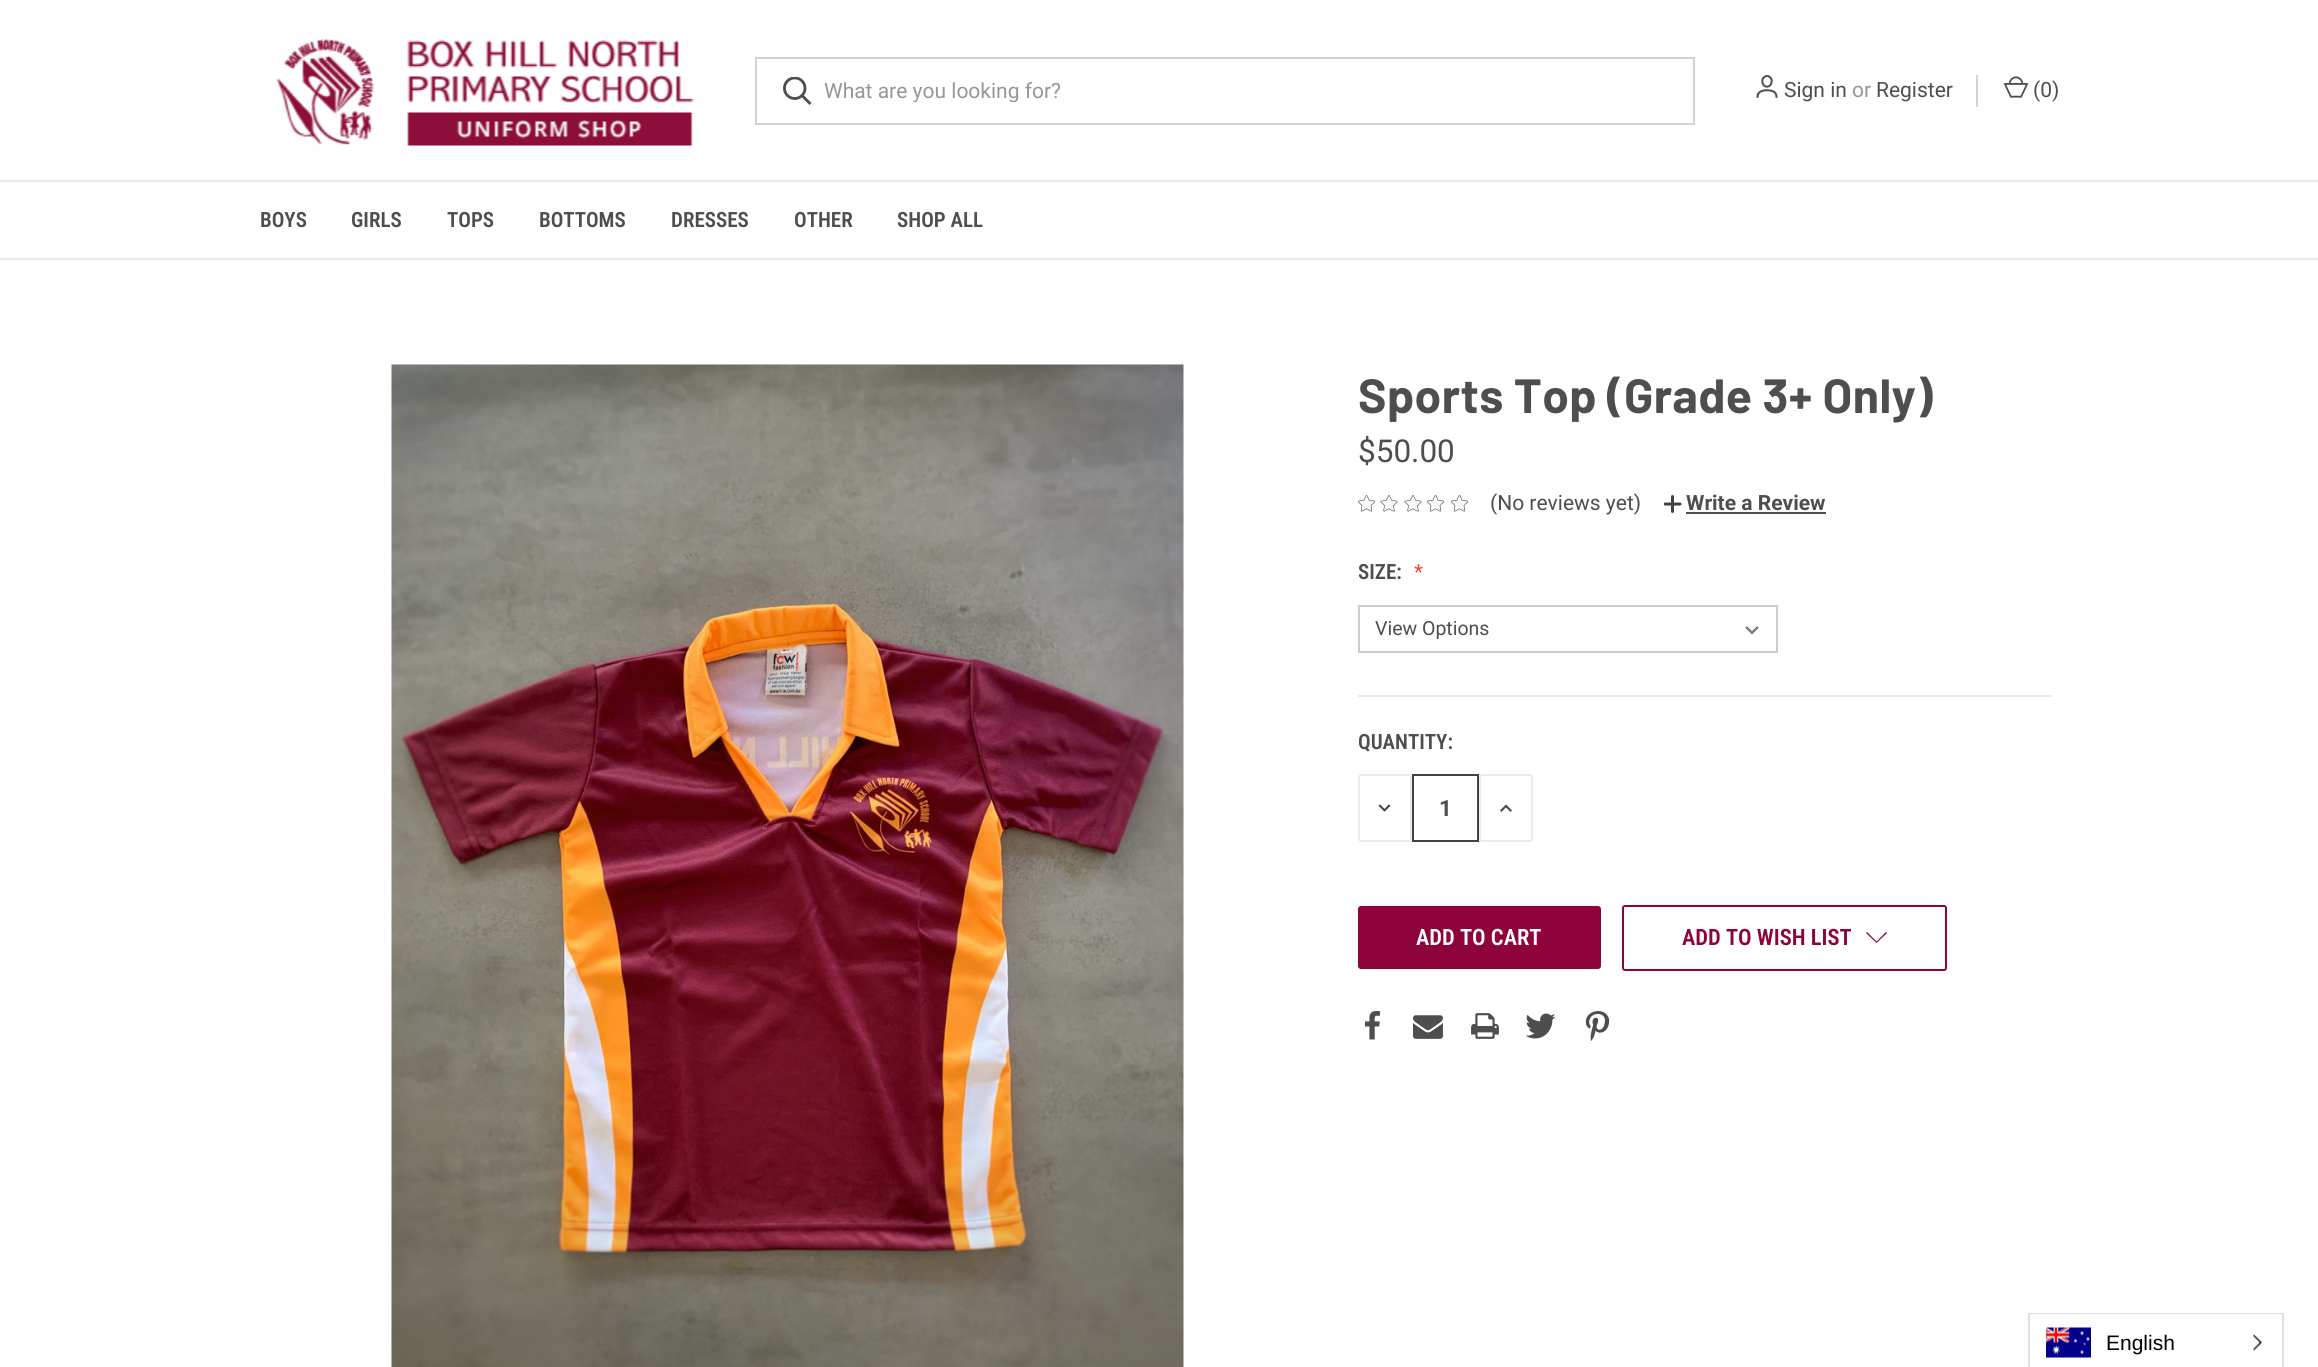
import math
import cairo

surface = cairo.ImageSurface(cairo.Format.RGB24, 2318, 1367)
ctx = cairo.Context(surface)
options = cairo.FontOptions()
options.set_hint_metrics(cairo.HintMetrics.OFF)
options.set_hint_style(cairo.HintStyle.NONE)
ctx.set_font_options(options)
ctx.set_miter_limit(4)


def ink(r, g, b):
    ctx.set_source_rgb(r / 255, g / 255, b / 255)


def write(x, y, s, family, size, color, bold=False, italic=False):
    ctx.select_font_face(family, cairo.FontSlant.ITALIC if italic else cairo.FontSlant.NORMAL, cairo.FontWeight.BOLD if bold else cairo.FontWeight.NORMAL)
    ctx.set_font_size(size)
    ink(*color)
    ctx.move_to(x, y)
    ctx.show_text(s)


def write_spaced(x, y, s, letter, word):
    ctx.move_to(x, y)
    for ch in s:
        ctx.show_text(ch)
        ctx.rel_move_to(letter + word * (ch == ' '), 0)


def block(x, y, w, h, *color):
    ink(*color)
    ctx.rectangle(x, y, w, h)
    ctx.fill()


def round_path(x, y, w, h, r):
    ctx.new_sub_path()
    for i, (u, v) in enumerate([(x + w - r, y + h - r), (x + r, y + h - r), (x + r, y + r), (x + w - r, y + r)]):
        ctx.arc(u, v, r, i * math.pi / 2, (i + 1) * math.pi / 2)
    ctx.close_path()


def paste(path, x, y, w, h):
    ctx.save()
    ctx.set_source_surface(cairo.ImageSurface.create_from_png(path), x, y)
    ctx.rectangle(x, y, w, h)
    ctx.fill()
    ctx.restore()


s1 = dict(family="Roboto", size=21, color=(150, 150, 150))
s2 = dict(family="Roboto", size=21, color=(78, 78, 78))
s3 = dict(family="Roboto Condensed SemiBold", size=21, color=(78, 78, 78))
s4 = dict(family="Roboto", size=31.5, color=(78, 78, 78))
s5 = dict(family="Roboto", size=21, color=(78, 78, 78), bold=True)
s6 = dict(family="Roboto Condensed", size=21, color=(245, 74, 58))
s7 = dict(family="Roboto", size=19.5, color=(78, 78, 78))
s8 = dict(family="Roboto", size=22.5, color=(78, 78, 78), bold=True)
s9 = dict(family="Roboto Condensed SemiBold", size=22.5, color=(255, 255, 255))
s10 = dict(family="Roboto Condensed SemiBold", size=22.5, color=(142, 3, 58))
s11 = dict(family="Liberation Sans", size=21, color=(0, 0, 0))

ink(255, 255, 255)
ctx.paint()
paste("pic1.png", 276, 38, 418, 108)
ctx.rectangle(756, 58, 938, 66)
ink(210, 210, 210)
ctx.stroke()
paste("pic2.png", 783, 77, 29, 28)
ctx.save()
ctx.rectangle(824, 78, 849, 24)
ctx.clip()
write(824, 98, "What are you looking for?", **s1)
ctx.restore()
paste("pic3.png", 1756, 75, 22, 23)
write(1784, 97, "Sign in", **s2)
write(1852, 97, "or", **s1)
write(1876, 97, "Register", **s2)
block(1976, 75, 2, 32, 210, 210, 210)
paste("pic4.png", 2004, 76, 24, 22)
write(2033, 97, "(0)", **s2)
block(0, 180, 2318, 2, 235, 235, 235)
block(0, 258, 2318, 2, 235, 235, 235)
write(260, 227, "BOYS", **s3)
write(351, 227, "GIRLS", **s3)
write(447, 227, "TOPS", **s3)
write(539, 227, "BOTTOMS", **s3)
write(671, 227, "DRESSES", **s3)
write(794, 227, "OTHER", **s3)
write(897, 227, "SHOP ALL", **s3)
paste("pic5.png", 391, 364, 793, 1003)
ctx.select_font_face("Barlow", cairo.FontSlant.NORMAL, cairo.FontWeight.BOLD)
ctx.set_font_size(48)
write_spaced(1358, 413, "Sports Top (Grade 3+ Only)", 0.4, 0)
write(1358, 462, "$50.00", **s4)
paste("pic6.png", 1358, 495, 18, 17)
paste("pic7.png", 1380, 495, 18, 17)
paste("pic7.png", 1404, 495, 18, 17)
paste("pic6.png", 1427, 495, 18, 17)
paste("pic6.png", 1451, 495, 18, 17)
write(1490, 510, "(No reviews yet)", **s2)
paste("pic8.png", 1664, 495, 18, 18)
write(1686, 510, "Write a Review", **s5)
block(1686, 512, 140, 2, 78, 78, 78)
block(1358, 695, 694, 2, 235, 235, 235)
write(1358, 579, "SIZE:", **s3)
write(1414, 579, "*", **s6)
paste("pic9.png", 1745, 626, 14, 9)
ctx.rectangle(1359, 606, 418, 46)
ink(204, 204, 204)
ctx.stroke()
write(1375, 635, "View Options", **s7)
write(1358, 749, "QUANTITY:", **s3)
round_path(1359, 775, 52, 66, 2)
ink(235, 235, 235)
ctx.stroke()
paste("pic10.png", 1378, 804, 13, 8)
ctx.rectangle(1413, 775, 65, 66)
ink(66, 66, 66)
ctx.stroke()
write(1439, 816, "1", **s8)
round_path(1480, 775, 52, 66, 2)
ink(235, 235, 235)
ctx.stroke()
paste("pic11.png", 1500, 804, 12, 8)
ink(142, 3, 58)
round_path(1358, 906, 243, 63, 3)
ctx.fill()
write(1416, 945, "ADD TO CART", **s9)
round_path(1623, 906, 323, 64, 2)
ink(142, 3, 58)
ctx.stroke()
write(1682, 945, "ADD TO WISH LIST", **s10)
ctx.set_fill_rule(cairo.FillRule.EVEN_ODD)
ctx.new_path()
ctx.move_to(1876.5, 941.5)
ctx.line_to(1886, 932)
ctx.line_to(1887, 933)
ctx.line_to(1876.5, 943)
ctx.line_to(1866, 933)
ctx.line_to(1867, 932)
ctx.close_path()
ctx.fill()
paste("pic12.png", 1365, 1011, 15, 29)
paste("pic13.png", 1413, 1015, 30, 24)
paste("pic14.png", 1471, 1013, 28, 26)
paste("pic15.png", 1526, 1013, 29, 26)
paste("pic16.png", 1585, 1011, 25, 30)
block(2028, 1313, 255, 1, 224, 224, 224)
block(2282, 1313, 2, 54, 224, 224, 224)
block(2028, 1313, 2, 54, 224, 224, 224)
paste("pic17.png", 2046, 1327, 45, 31)
write(2106, 1350, "English", **s11)
paste("pic18.png", 2253, 1334, 9, 17)
surface.write_to_png("screenshot.png")
